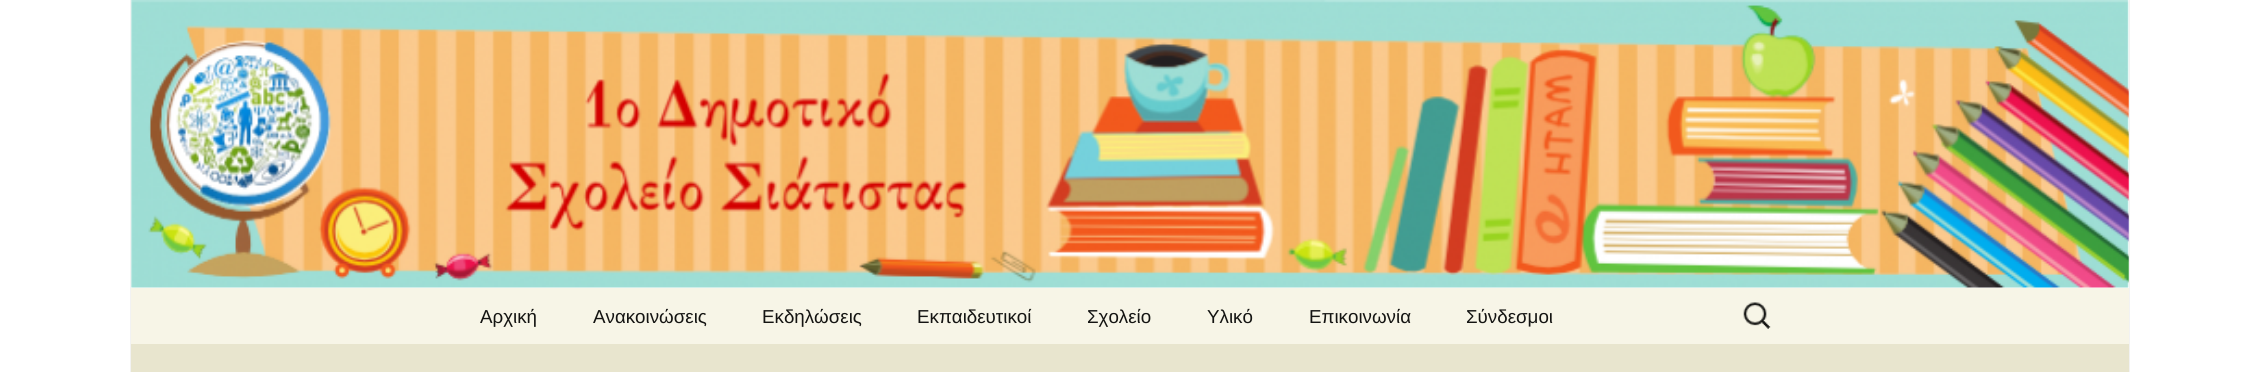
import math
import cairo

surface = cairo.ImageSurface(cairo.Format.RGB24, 2259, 372)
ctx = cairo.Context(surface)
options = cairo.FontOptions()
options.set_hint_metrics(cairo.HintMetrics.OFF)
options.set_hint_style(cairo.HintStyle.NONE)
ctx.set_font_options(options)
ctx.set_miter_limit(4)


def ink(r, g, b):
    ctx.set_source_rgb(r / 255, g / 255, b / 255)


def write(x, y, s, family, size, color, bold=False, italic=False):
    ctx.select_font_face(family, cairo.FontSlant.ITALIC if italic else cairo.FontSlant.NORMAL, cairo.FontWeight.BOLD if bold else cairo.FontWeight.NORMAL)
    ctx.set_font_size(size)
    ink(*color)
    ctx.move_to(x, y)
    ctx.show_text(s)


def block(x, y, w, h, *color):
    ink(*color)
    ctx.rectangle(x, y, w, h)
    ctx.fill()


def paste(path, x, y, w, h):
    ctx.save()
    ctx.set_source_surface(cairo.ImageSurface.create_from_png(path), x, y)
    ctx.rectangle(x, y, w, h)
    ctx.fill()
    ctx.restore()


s1 = dict(family="Liberation Sans", size=18.75, color=(20, 20, 18))

ink(255, 255, 255)
ctx.paint()
block(2129, 0, 1, 372, 242, 242, 242)
block(130, 0, 1, 372, 242, 242, 242)
paste("pic1.png", 131, 0, 1998, 288)
block(131, 288, 1998, 56, 247, 245, 231)
write(480, 323, "Αρχική", **s1)
write(593, 323, "Ανακοινώσεις", **s1)
write(762, 323, "Εκδηλώσεις", **s1)
write(917, 323, "Εκπαιδευτικοί", **s1)
write(1087, 323, "Σχολείο", **s1)
write(1207, 323, "Υλικό", **s1)
write(1309, 323, "Επικοινωνία", **s1)
write(1466, 323, "Σύνδεσμοι", **s1)
paste("pic2.png", 1743, 302, 28, 27)
block(131, 344, 1998, 28, 232, 229, 206)
surface.write_to_png("screenshot.png")
